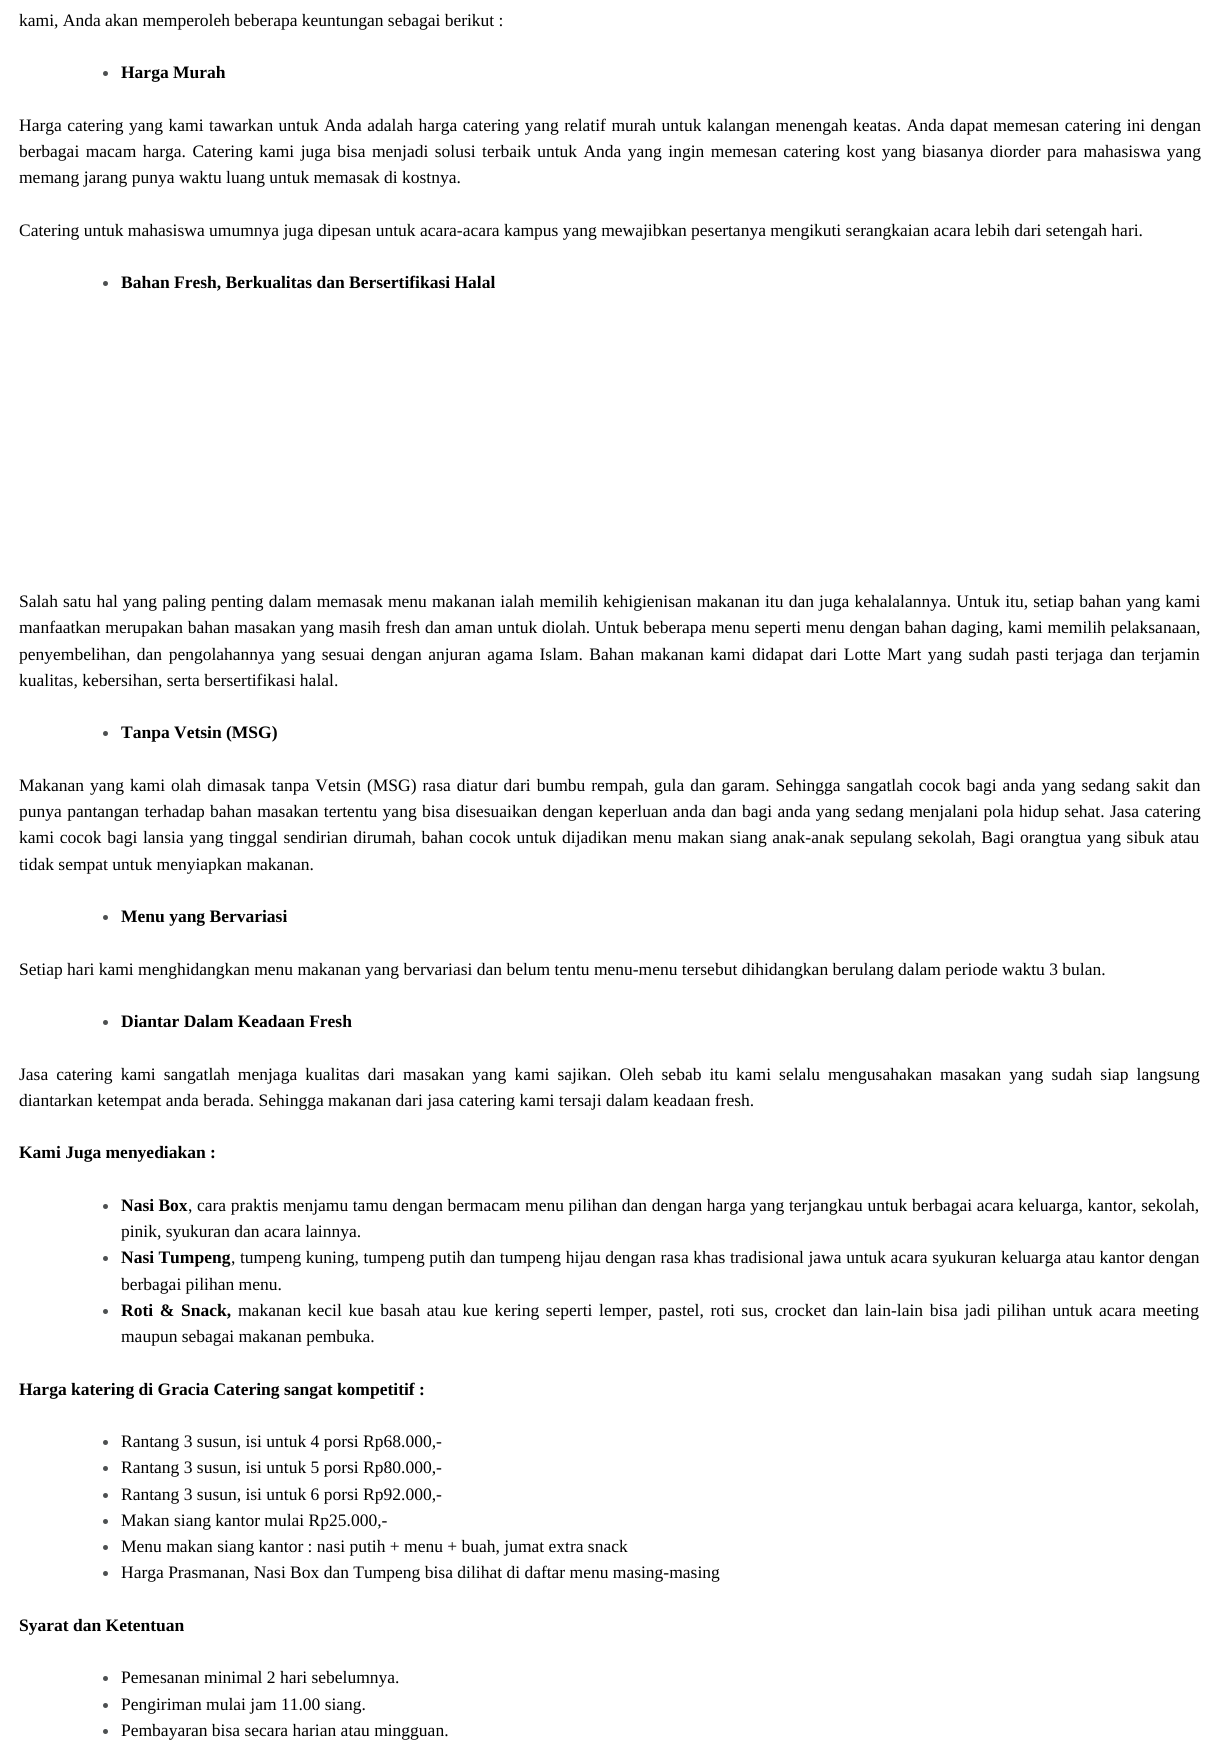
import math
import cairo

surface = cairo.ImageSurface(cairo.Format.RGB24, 1218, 1750)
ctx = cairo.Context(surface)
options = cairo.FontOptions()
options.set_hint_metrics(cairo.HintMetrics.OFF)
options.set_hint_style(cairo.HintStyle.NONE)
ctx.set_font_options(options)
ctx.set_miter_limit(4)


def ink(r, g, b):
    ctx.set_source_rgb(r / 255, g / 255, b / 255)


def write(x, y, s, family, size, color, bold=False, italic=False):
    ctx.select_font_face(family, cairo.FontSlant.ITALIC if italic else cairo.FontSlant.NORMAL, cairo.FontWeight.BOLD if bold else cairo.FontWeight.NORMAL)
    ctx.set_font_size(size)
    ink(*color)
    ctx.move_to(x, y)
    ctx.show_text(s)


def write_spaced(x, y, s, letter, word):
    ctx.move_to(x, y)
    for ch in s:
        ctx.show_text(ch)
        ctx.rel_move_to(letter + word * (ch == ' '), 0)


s1 = dict(family="Liberation Serif", size=17.5, color=(0, 0, 0))
s2 = dict(family="Liberation Serif", size=17.5, color=(0, 0, 0), bold=True)

ink(255, 255, 255)
ctx.paint()
write(19, 26, "kami, Anda akan memperoleh beberapa keuntungan sebagai berikut :", **s1)
ink(77, 80, 81)
ctx.new_path()
ctx.arc(105.5, 73.5, 2.5, 0, 2 * math.pi)
ctx.fill()
write(121, 78, "Harga Murah", **s2)
ctx.select_font_face("Liberation Serif")
write_spaced(19, 131, "Harga catering yang kami tawarkan untuk Anda adalah harga catering yang relatif murah untuk kalangan menengah keatas. Anda dapat memesan catering ini dengan", 0, 1.1)
write_spaced(19, 157, "berbagai macam harga. Catering kami juga bisa menjadi solusi terbaik untuk Anda yang ingin memesan catering kost yang biasanya diorder para mahasiswa yang", 0, 2.1)
write(19, 183, "memang jarang punya waktu luang untuk memasak di kostnya.", **s1)
write(19, 236, "Catering untuk mahasiswa umumnya juga dipesan untuk acara-acara kampus yang mewajibkan pesertanya mengikuti serangkaian acara lebih dari setengah hari.", **s1)
ink(77, 80, 81)
ctx.new_path()
ctx.arc(105.5, 283.5, 2.5, 0, 2 * math.pi)
ctx.fill()
write(121, 288, "Bahan Fresh, Berkualitas dan Bersertifikasi Halal", **s2)
ctx.select_font_face("Liberation Serif")
write_spaced(19, 607, "Salah satu hal yang paling penting dalam memasak menu makanan ialah memilih kehigienisan makanan itu dan juga kehalalannya. Untuk itu, setiap bahan yang kami", 0, 0.8)
write_spaced(19, 633, "manfaatkan merupakan bahan masakan yang masih fresh dan aman untuk diolah. Untuk beberapa menu seperti menu dengan bahan daging, kami memilih pelaksanaan,", 0, 0.3)
write_spaced(19, 660, "penyembelihan, dan pengolahannya yang sesuai dengan anjuran agama Islam. Bahan makanan kami didapat dari Lotte Mart yang sudah pasti terjaga dan terjamin", 0, 2.2)
write(19, 686, "kualitas, kebersihan, serta bersertifikasi halal.", **s1)
ink(77, 80, 81)
ctx.new_path()
ctx.arc(105.5, 733.5, 2.5, 0, 2 * math.pi)
ctx.fill()
write(121, 738, "Tanpa Vetsin (MSG)", **s2)
ctx.select_font_face("Liberation Serif")
write_spaced(19, 791, "Makanan yang kami olah dimasak tanpa Vetsin (MSG) rasa diatur dari bumbu rempah, gula dan garam. Sehingga sangatlah cocok bagi anda yang sedang sakit dan", 0, 1.6)
write_spaced(19, 817, "punya pantangan terhadap bahan masakan tertentu yang bisa disesuaikan dengan keperluan anda dan bagi anda yang sedang menjalani pola hidup sehat. Jasa catering", 0, 1)
write_spaced(19, 843, "kami cocok bagi lansia yang tinggal sendirian dirumah, bahan cocok untuk dijadikan menu makan siang anak-anak sepulang sekolah, Bagi orangtua yang sibuk atau", 0, 1.3)
write(19, 870, "tidak sempat untuk menyiapkan makanan.", **s1)
ink(77, 80, 81)
ctx.new_path()
ctx.arc(105.5, 917.5, 2.5, 0, 2 * math.pi)
ctx.fill()
write(121, 922, "Menu yang Bervariasi", **s2)
write(19, 975, "Setiap hari kami menghidangkan menu makanan yang bervariasi dan belum tentu menu-menu tersebut dihidangkan berulang dalam periode waktu 3 bulan.", **s1)
ink(77, 80, 81)
ctx.new_path()
ctx.arc(105.5, 1022.5, 2.5, 0, 2 * math.pi)
ctx.fill()
write(121, 1027, "Diantar Dalam Keadaan Fresh", **s2)
ctx.select_font_face("Liberation Serif")
write_spaced(19, 1080, "Jasa catering kami sangatlah menjaga kualitas dari masakan yang kami sajikan. Oleh sebab itu kami selalu mengusahakan masakan yang sudah siap langsung", 0, 3.7)
write(19, 1106, "diantarkan ketempat anda berada. Sehingga makanan dari jasa catering kami tersaji dalam keadaan fresh.", **s1)
write(19, 1158, "Kami Juga menyediakan :", **s2)
ink(77, 80, 81)
ctx.new_path()
ctx.arc(105.5, 1206.5, 2.5, 0, 2 * math.pi)
ctx.fill()
write(121, 1211, "Nasi Box", **s2)
ctx.select_font_face("Liberation Serif")
write_spaced(188, 1211, ", cara praktis menjamu tamu dengan bermacam menu pilihan dan dengan harga yang terjangkau untuk berbagai acara keluarga, kantor, sekolah,", 0, 0.25)
write(121, 1237, "pinik, syukuran dan acara lainnya.", **s1)
ink(77, 80, 81)
ctx.new_path()
ctx.arc(105.5, 1258.5, 2.5, 0, 2 * math.pi)
ctx.fill()
write(121, 1263, "Nasi Tumpeng", **s2)
ctx.select_font_face("Liberation Serif")
write_spaced(231, 1263, ", tumpeng kuning, tumpeng putih dan tumpeng hijau dengan rasa khas tradisional jawa untuk acara syukuran keluarga atau kantor dengan", 0, 0.25)
write(121, 1290, "berbagai pilihan menu.", **s1)
ink(77, 80, 81)
ctx.new_path()
ctx.arc(105.5, 1311.5, 2.5, 0, 2 * math.pi)
ctx.fill()
ctx.select_font_face("Liberation Serif", cairo.FontSlant.NORMAL, cairo.FontWeight.BOLD)
ink(0, 0, 0)
write_spaced(121, 1316, "Roti & Snack,", 0, 2.25)
ctx.select_font_face("Liberation Serif")
write_spaced(238, 1316, "makanan kecil kue basah atau kue kering seperti lemper, pastel, roti sus, crocket dan lain-lain bisa jadi pilihan untuk acara meeting", 0, 2.25)
write(121, 1342, "maupun sebagai makanan pembuka.", **s1)
write(19, 1395, "Harga katering di Gracia Catering sangat kompetitif :", **s2)
ink(77, 80, 81)
ctx.new_path()
ctx.arc(105.5, 1442.5, 2.5, 0, 2 * math.pi)
ctx.fill()
write(121, 1447, "Rantang 3 susun, isi untuk 4 porsi Rp68.000,-", **s1)
ink(77, 80, 81)
ctx.new_path()
ctx.arc(105.5, 1468.5, 2.5, 0, 2 * math.pi)
ctx.fill()
write(121, 1473, "Rantang 3 susun, isi untuk 5 porsi Rp80.000,-", **s1)
ink(77, 80, 81)
ctx.new_path()
ctx.arc(105.5, 1495.5, 2.5, 0, 2 * math.pi)
ctx.fill()
write(121, 1500, "Rantang 3 susun, isi untuk 6 porsi Rp92.000,-", **s1)
ink(77, 80, 81)
ctx.new_path()
ctx.arc(105.5, 1521.5, 2.5, 0, 2 * math.pi)
ctx.fill()
write(121, 1526, "Makan siang kantor mulai Rp25.000,-", **s1)
ink(77, 80, 81)
ctx.new_path()
ctx.arc(105.5, 1547.5, 2.5, 0, 2 * math.pi)
ctx.fill()
write(121, 1552, "Menu makan siang kantor : nasi putih + menu + buah, jumat extra snack", **s1)
ink(77, 80, 81)
ctx.new_path()
ctx.arc(105.5, 1573.5, 2.5, 0, 2 * math.pi)
ctx.fill()
write(121, 1578, "Harga Prasmanan, Nasi Box dan Tumpeng bisa dilihat di daftar menu masing-masing", **s1)
write(19, 1631, "Syarat dan Ketentuan", **s2)
ink(77, 80, 81)
ctx.new_path()
ctx.arc(105.5, 1678.5, 2.5, 0, 2 * math.pi)
ctx.fill()
write(121, 1683, "Pemesanan minimal 2 hari sebelumnya.", **s1)
ink(77, 80, 81)
ctx.new_path()
ctx.arc(105.5, 1705.5, 2.5, 0, 2 * math.pi)
ctx.fill()
write(121, 1710, "Pengiriman mulai jam 11.00 siang.", **s1)
ink(77, 80, 81)
ctx.new_path()
ctx.arc(105.5, 1731.5, 2.5, 0, 2 * math.pi)
ctx.fill()
write(121, 1736, "Pembayaran bisa secara harian atau mingguan.", **s1)
surface.write_to_png("screenshot.png")
